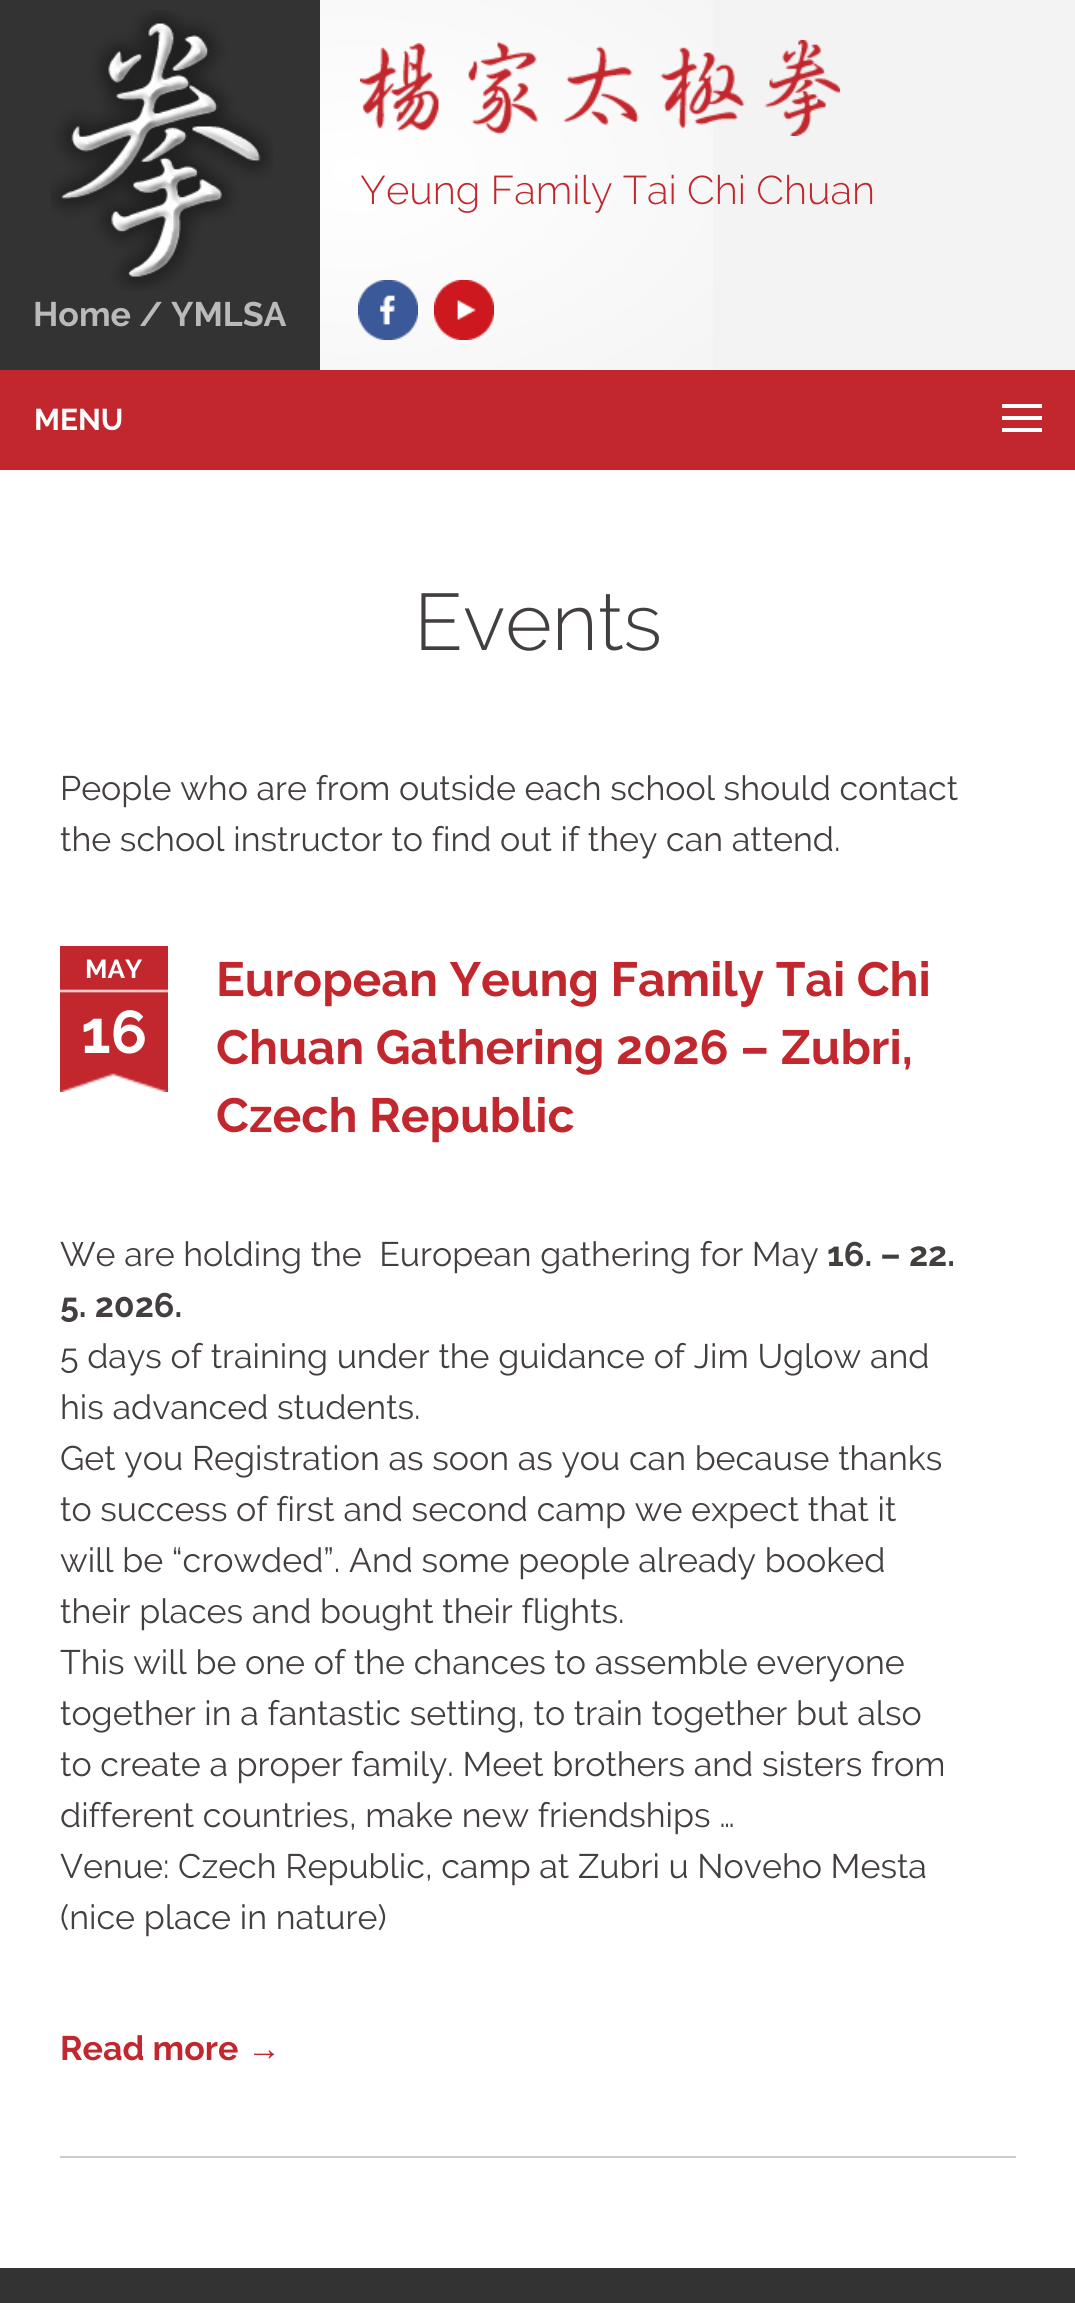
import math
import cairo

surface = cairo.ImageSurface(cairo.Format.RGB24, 1075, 2303)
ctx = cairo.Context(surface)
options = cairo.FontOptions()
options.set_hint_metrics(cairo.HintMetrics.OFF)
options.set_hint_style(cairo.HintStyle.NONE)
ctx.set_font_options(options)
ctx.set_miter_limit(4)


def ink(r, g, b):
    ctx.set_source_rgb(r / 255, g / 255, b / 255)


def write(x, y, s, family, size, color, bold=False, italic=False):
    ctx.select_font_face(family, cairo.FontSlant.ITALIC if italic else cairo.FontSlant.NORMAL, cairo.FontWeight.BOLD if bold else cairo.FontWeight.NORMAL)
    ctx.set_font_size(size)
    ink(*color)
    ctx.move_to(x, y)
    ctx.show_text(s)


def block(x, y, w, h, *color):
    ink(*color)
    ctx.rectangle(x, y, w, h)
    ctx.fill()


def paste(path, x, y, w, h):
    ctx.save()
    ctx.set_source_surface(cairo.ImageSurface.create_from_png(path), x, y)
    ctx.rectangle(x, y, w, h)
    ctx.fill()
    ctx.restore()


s1 = dict(family="Raleway Light", size=40, color=(193, 39, 45))
s2 = dict(family="Raleway", size=34, color=(186, 186, 186), bold=True)
s3 = dict(family="Raleway", size=30, color=(255, 255, 255), bold=True)
s4 = dict(family="Raleway Light", size=80, color=(68, 63, 63))
s5 = dict(family="Raleway", size=34, color=(68, 63, 63))
s6 = dict(family="Raleway", size=26, color=(255, 255, 255), bold=True)
s7 = dict(family="Raleway", size=60, color=(255, 255, 255), bold=True)
s8 = dict(family="Raleway", size=48, color=(193, 39, 45), bold=True)
s9 = dict(family="Raleway", size=34, color=(68, 63, 63), bold=True)
s10 = dict(family="Raleway", size=34, color=(193, 39, 45), bold=True)
s11 = dict(family="Liberation Sans", size=34, color=(193, 39, 45), bold=True)

ink(243, 243, 243)
ctx.paint()
paste("pic1.png", 320, 0, 393, 370)
paste("pic2.png", 360, 40, 480, 96)
write(360, 204, "Yeung Family Tai Chi Chuan", **s1)
block(0, 0, 320, 370, 51, 51, 51)
paste("pic3.png", 50, 10, 223, 281)
write(33, 326, "Home / YMLSA", **s2)
paste("pic4.png", 358, 280, 60, 60)
paste("pic5.png", 434, 280, 60, 60)
block(0, 370, 1075, 100, 193, 39, 45)
block(1002, 404, 40, 4, 255, 255, 255)
write(34, 430, "MENU", **s3)
block(1002, 416, 40, 4, 255, 255, 255)
block(1002, 428, 40, 4, 255, 255, 255)
block(0, 470, 1075, 1798, 255, 255, 255)
write(414, 650, "Events", **s4)
write(60, 800, "People who are from outside each school should contact", **s5)
write(60, 851, "the school instructor to find out if they can attend.", **s5)
block(60, 2156, 956, 2, 204, 204, 204)
paste("pic6.png", 60, 946, 108, 146)
write(85, 978, "MAY", **s6)
write(81, 1053, "16", **s7)
write(216, 996, "European Yeung Family Tai Chi", **s8)
write(216, 1064, "Chuan Gathering 2026 – Zubri,", **s8)
write(216, 1132, "Czech Republic", **s8)
write(60, 1266, "We are holding the  European gathering for May", **s5)
write(827, 1266, "16. – 22.", **s9)
write(60, 1317, "5. 2026.", **s9)
write(60, 1368, "5 days of training under the guidance of Jim Uglow and", **s5)
write(60, 1419, "his advanced students.", **s5)
write(60, 1470, "Get you Registration as soon as you can because thanks", **s5)
write(60, 1521, "to success of first and second camp we expect that it", **s5)
write(60, 1572, "will be “crowded”. And some people already booked", **s5)
write(60, 1623, "their places and bought their flights.", **s5)
write(60, 1674, "This will be one of the chances to assemble everyone", **s5)
write(60, 1725, "together in a fantastic setting, to train together but also", **s5)
write(60, 1776, "to create a proper family. Meet brothers and sisters from", **s5)
write(60, 1827, "different countries, make new friendships …", **s5)
write(60, 1878, "Venue: Czech Republic, camp at Zubri u Noveho Mesta", **s5)
write(60, 1929, "(nice place in nature)", **s5)
write(60, 2060, "Read more", **s10)
write(247, 2060, "→", **s11)
block(0, 2268, 1075, 35, 51, 51, 51)
surface.write_to_png("screenshot.png")
